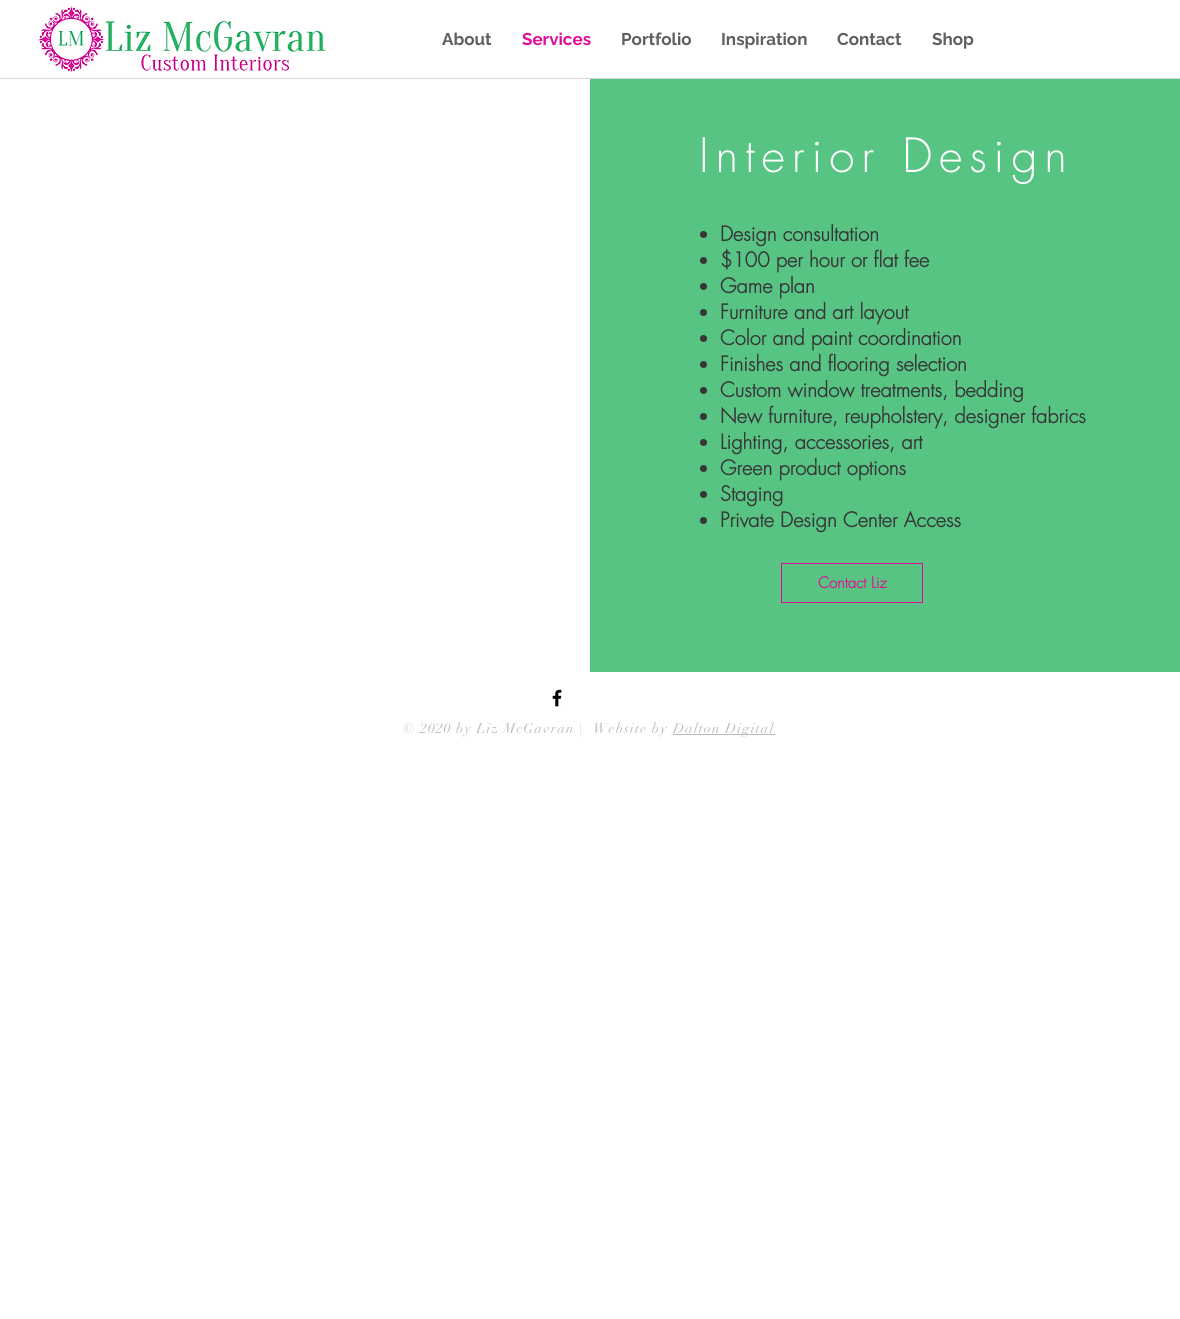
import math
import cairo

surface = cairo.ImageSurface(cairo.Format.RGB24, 1180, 1319)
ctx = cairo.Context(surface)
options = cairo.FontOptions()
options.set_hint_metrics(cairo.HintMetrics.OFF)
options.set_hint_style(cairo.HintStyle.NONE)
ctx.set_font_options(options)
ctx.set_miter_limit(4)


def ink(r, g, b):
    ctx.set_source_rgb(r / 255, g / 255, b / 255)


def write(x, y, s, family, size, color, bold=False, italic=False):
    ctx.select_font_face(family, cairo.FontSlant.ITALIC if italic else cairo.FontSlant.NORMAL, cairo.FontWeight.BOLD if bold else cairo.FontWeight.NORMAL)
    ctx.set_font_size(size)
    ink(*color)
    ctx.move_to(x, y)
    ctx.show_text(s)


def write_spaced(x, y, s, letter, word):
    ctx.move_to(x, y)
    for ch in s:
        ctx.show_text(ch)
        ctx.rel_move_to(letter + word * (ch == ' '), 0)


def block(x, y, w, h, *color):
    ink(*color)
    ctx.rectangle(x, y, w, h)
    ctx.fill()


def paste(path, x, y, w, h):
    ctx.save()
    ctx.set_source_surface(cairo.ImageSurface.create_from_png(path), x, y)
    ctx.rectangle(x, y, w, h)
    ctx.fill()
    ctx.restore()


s1 = dict(family="Raleway", size=17, color=(96, 94, 94), bold=True)
s2 = dict(family="Raleway", size=17, color=(224, 13, 154), bold=True)
s3 = dict(family="futura", size=20, color=(54, 54, 54), bold=True)
s4 = dict(family="futura", size=15, color=(224, 13, 154), bold=True)

ink(255, 255, 255)
ctx.paint()
paste("pic1.png", 38, 6, 288, 67)
write(442, 45, "About", **s1)
write(522, 45, "Services", **s2)
write(621, 45, "Portfolio", **s1)
write(721, 45, "Inspiration", **s1)
write(837, 45, "Contact", **s1)
write(932, 45, "Shop", **s1)
block(0, 78, 1180, 1, 215, 215, 215)
block(590, 79, 590, 593, 87, 196, 131)
ctx.select_font_face("futura Light")
ctx.set_font_size(46)
ink(255, 255, 255)
write_spaced(699, 172, "Interior Design", 6.9, 0)
ink(54, 54, 54)
ctx.new_path()
ctx.arc(703.5, 234.5, 3.5, 0, 2 * math.pi)
ctx.fill()
write(720, 241, "Design consultation", **s3)
ctx.new_path()
ctx.arc(703.5, 260.5, 3.5, 0, 2 * math.pi)
ctx.fill()
write(720, 267, "$100 per hour or flat fee", **s3)
ctx.new_path()
ctx.arc(703.5, 286.5, 3.5, 0, 2 * math.pi)
ctx.fill()
write(720, 293, "Game plan", **s3)
ctx.new_path()
ctx.arc(703.5, 312.5, 3.5, 0, 2 * math.pi)
ctx.fill()
write(720, 319, "Furniture and art layout", **s3)
ctx.new_path()
ctx.arc(703.5, 338.5, 3.5, 0, 2 * math.pi)
ctx.fill()
write(720, 345, "Color and paint coordination", **s3)
ctx.new_path()
ctx.arc(703.5, 364.5, 3.5, 0, 2 * math.pi)
ctx.fill()
write(720, 371, "Finishes and flooring selection", **s3)
ctx.new_path()
ctx.arc(703.5, 390.5, 3.5, 0, 2 * math.pi)
ctx.fill()
write(720, 397, "Custom window treatments, bedding", **s3)
ctx.new_path()
ctx.arc(703.5, 416.5, 3.5, 0, 2 * math.pi)
ctx.fill()
write(720, 423, "New furniture, reupholstery, designer fabrics", **s3)
ctx.new_path()
ctx.arc(703.5, 442.5, 3.5, 0, 2 * math.pi)
ctx.fill()
write(720, 449, "Lighting, accessories, art", **s3)
ctx.new_path()
ctx.arc(703.5, 468.5, 3.5, 0, 2 * math.pi)
ctx.fill()
write(720, 475, "Green product options", **s3)
ctx.new_path()
ctx.arc(703.5, 494.5, 3.5, 0, 2 * math.pi)
ctx.fill()
write(720, 501, "Staging", **s3)
ctx.new_path()
ctx.arc(703.5, 520.5, 3.5, 0, 2 * math.pi)
ctx.fill()
write(720, 527, "Private Design Center Access", **s3)
ctx.rectangle(781.5, 563.5, 141, 39)
ink(224, 13, 154)
ctx.set_line_width(1)
ctx.stroke()
write(818, 588, "Contact Liz", **s4)
paste("pic2.png", 552, 689, 10, 18)
ctx.select_font_face("didot")
ctx.set_font_size(14)
ink(186, 186, 186)
write_spaced(403, 733, "© 2020 by Liz McGavran |", 1.1, 0)
write_spaced(593, 733, "Website by", 1.1, 0)
block(673, 734, 102, 1, 186, 186, 186)
write_spaced(673, 733, "Dalton Digital", 1.1, 0)
surface.write_to_png("screenshot.png")
